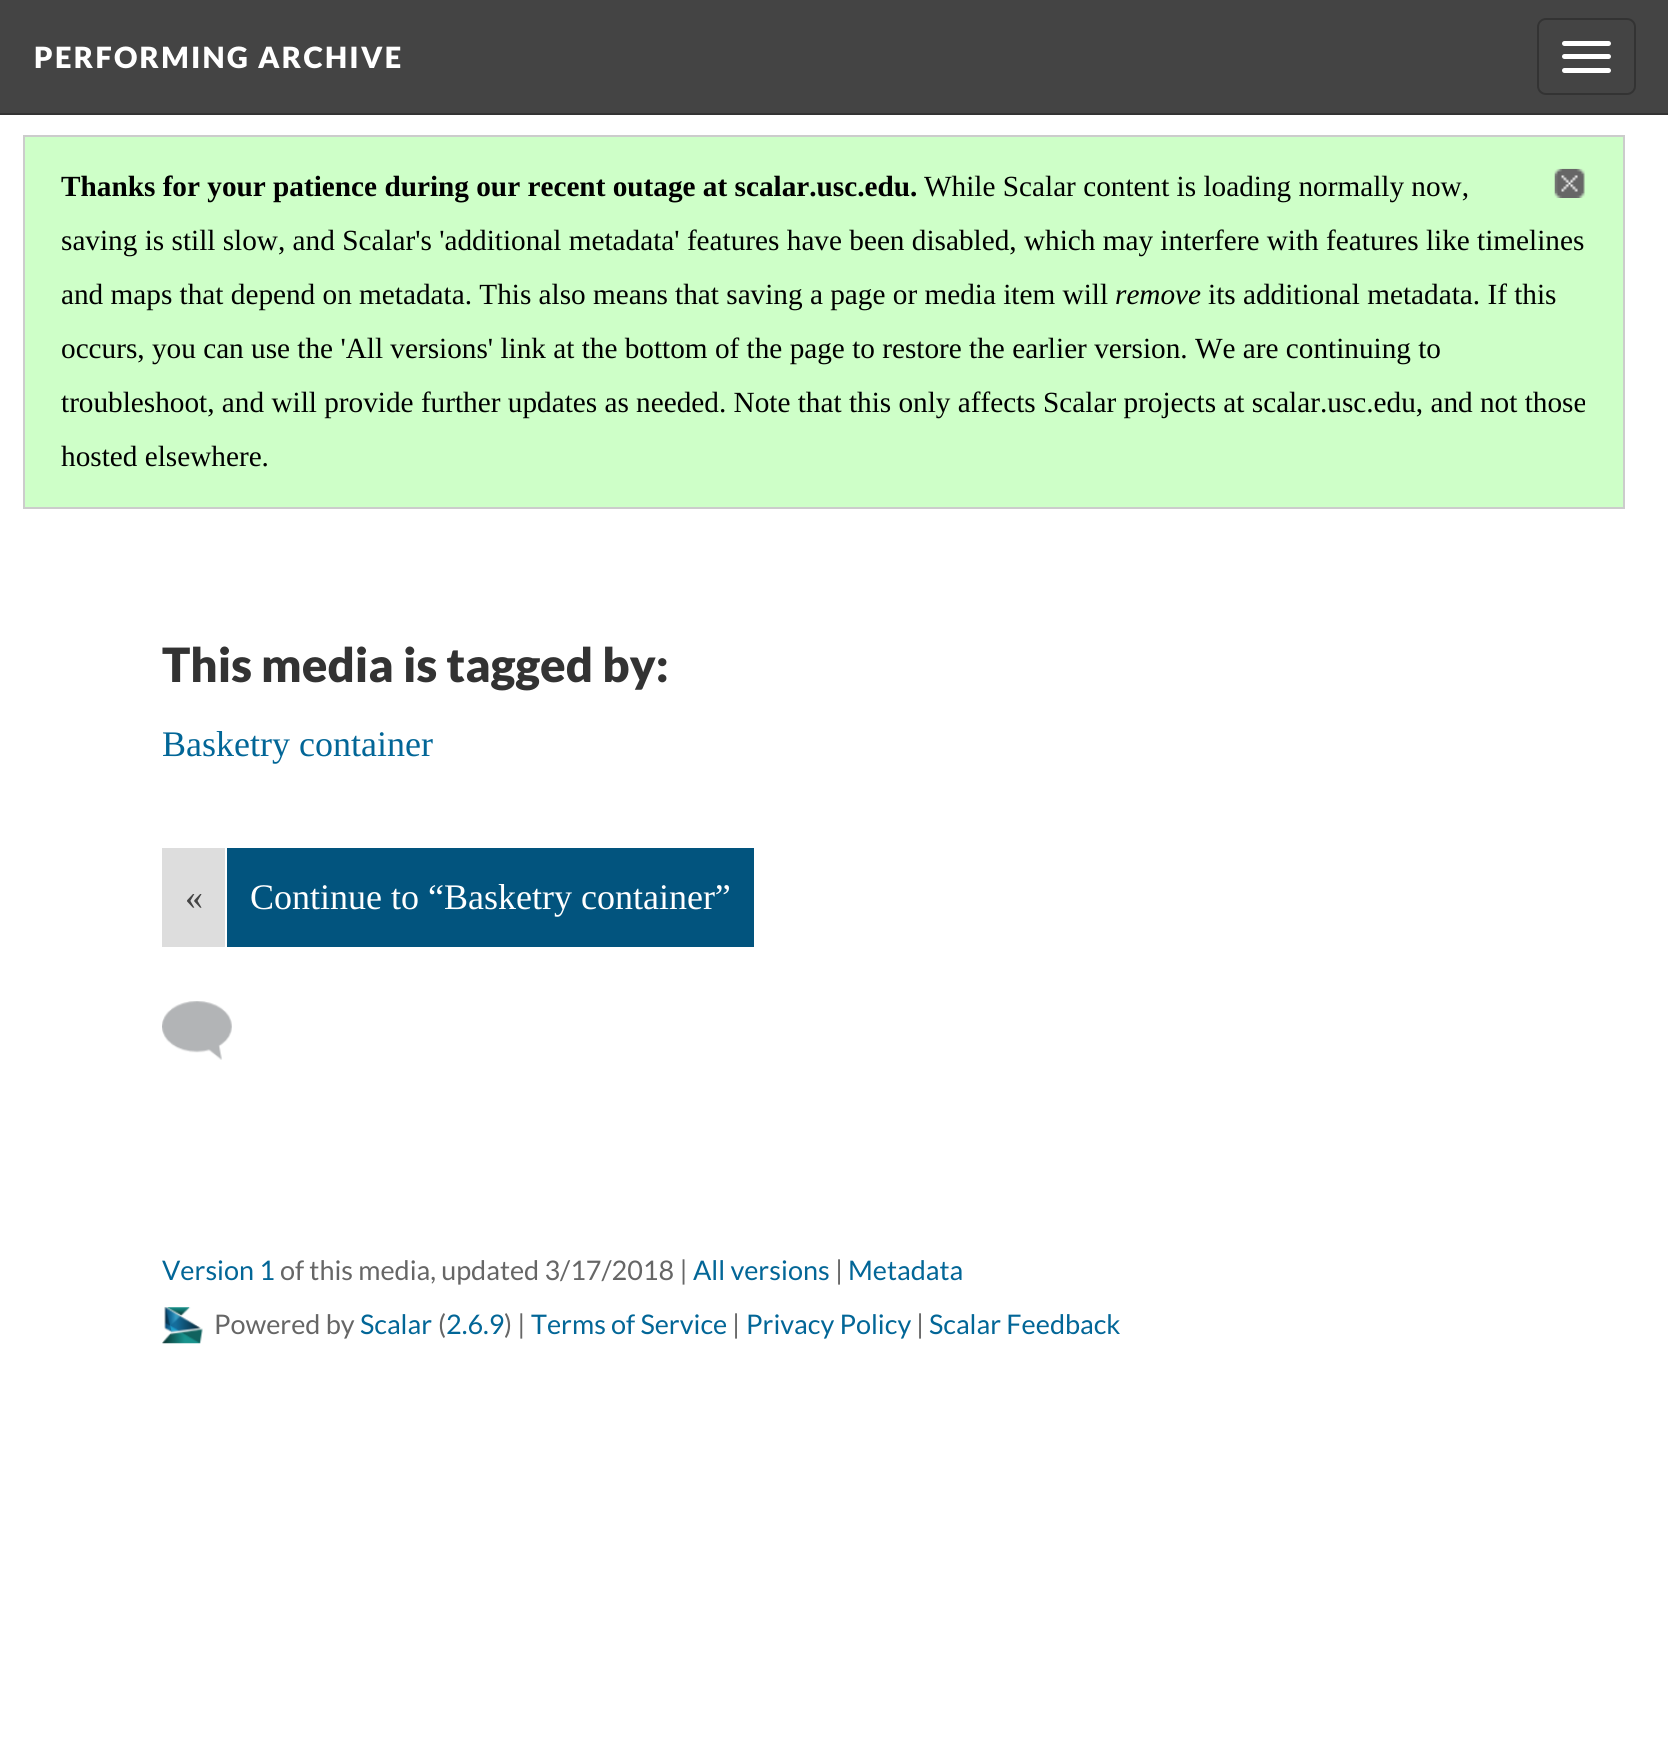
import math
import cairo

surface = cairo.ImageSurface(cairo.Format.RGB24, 1668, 1740)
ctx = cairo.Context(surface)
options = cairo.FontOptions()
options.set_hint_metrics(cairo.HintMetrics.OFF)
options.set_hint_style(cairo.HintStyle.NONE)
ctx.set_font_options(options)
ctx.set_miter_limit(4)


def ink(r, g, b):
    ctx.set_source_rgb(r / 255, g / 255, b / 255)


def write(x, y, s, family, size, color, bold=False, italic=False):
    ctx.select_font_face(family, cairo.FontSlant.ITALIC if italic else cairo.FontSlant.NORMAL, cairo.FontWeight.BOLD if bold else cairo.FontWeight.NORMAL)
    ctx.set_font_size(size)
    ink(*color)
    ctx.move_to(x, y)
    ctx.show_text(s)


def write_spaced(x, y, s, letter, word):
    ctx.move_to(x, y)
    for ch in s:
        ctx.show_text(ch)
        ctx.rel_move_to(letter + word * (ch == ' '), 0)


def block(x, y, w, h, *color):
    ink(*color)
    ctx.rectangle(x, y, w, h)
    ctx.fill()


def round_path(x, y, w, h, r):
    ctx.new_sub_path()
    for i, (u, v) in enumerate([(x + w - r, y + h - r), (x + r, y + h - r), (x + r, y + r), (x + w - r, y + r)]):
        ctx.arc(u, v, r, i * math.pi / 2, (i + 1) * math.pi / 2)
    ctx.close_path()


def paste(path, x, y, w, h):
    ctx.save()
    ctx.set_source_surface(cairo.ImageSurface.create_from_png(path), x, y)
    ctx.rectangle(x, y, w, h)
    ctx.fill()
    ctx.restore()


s1 = dict(family="Liberation Serif", size=29.25, color=(0, 0, 0), bold=True)
s2 = dict(family="Liberation Serif", size=29.25, color=(0, 0, 0))
s3 = dict(family="Liberation Serif", size=29.25, color=(0, 0, 0), italic=True)
s4 = dict(family="Lato Black", size=47.25, color=(51, 51, 51))
s5 = dict(family="Liberation Serif", size=36, color=(2, 102, 151))
s6 = dict(family="Liberation Serif", size=36, color=(68, 68, 68))
s7 = dict(family="Liberation Serif", size=36, color=(255, 255, 255))
s8 = dict(family="Lato", size=27, color=(2, 102, 151))
s9 = dict(family="Lato", size=27, color=(102, 102, 102))

ink(255, 255, 255)
ctx.paint()
block(0, 0, 1668, 113, 68, 68, 68)
block(0, 113, 1668, 2, 51, 51, 51)
ctx.select_font_face("Lato Black")
ctx.set_font_size(29.25)
ink(255, 255, 255)
write_spaced(34, 68, "PERFORMING ARCHIVE", 2.25, 0)
round_path(1538, 19, 97, 75, 8)
ink(51, 51, 51)
ctx.stroke()
ink(255, 255, 255)
round_path(1562, 41, 49, 5, 2.5)
ctx.fill()
round_path(1562, 54, 49, 5, 2.5)
ctx.fill()
round_path(1562, 68, 49, 5, 2.5)
ctx.fill()
ink(206, 255, 200)
ctx.rectangle(24, 136, 1600, 372)
ctx.fill_preserve()
ink(204, 204, 204)
ctx.stroke()
write(61, 196, "Thanks for your patience during our recent outage at scalar.usc.edu.", **s1)
write(924, 196, "While Scalar content is loading normally now,", **s2)
paste("pic1.png", 1554, 168, 31, 30)
write(61, 250, "saving is still slow, and Scalar's 'additional metadata' features have been disabled, which may interfere with features like timelines", **s2)
write(61, 304, "and maps that depend on metadata. This also means that saving a page or media item will", **s2)
write(1115, 304, "remove", **s3)
write(1208, 304, "its additional metadata. If this", **s2)
write(61, 358, "occurs, you can use the 'All versions' link at the bottom of the page to restore the earlier version. We are continuing to", **s2)
write(61, 412, "troubleshoot, and will provide further updates as needed. Note that this only affects Scalar projects at scalar.usc.edu, and not those", **s2)
write(61, 466, "hosted elsewhere.", **s2)
write(162, 682, "This media is tagged by:", **s4)
write(162, 756, "Basketry container", **s5)
block(162, 848, 63, 99, 221, 221, 221)
write(185, 909, "«", **s6)
block(227, 848, 527, 99, 2, 84, 126)
write(250, 909, "Continue to “Basketry container”", **s7)
paste("pic2.png", 162, 1001, 70, 59)
write(162, 1280, "Version 1", **s8)
write(280, 1280, "of this media, updated 3/17/2018 |", **s9)
write(693, 1280, "All versions", **s8)
write(835, 1280, "|", **s9)
write(848, 1280, "Metadata", **s8)
paste("pic3.png", 162, 1307, 41, 37)
write(214, 1334, "Powered by", **s9)
write(360, 1334, "Scalar", **s8)
write(438, 1334, "(", **s9)
write(446, 1334, "2.6.9", **s8)
write(504, 1334, ") |", **s9)
write(531, 1334, "Terms of Service", **s8)
write(732, 1334, "|", **s9)
write(746, 1334, "Privacy Policy", **s8)
write(916, 1334, "|", **s9)
write(929, 1334, "Scalar Feedback", **s8)
surface.write_to_png("screenshot.png")
